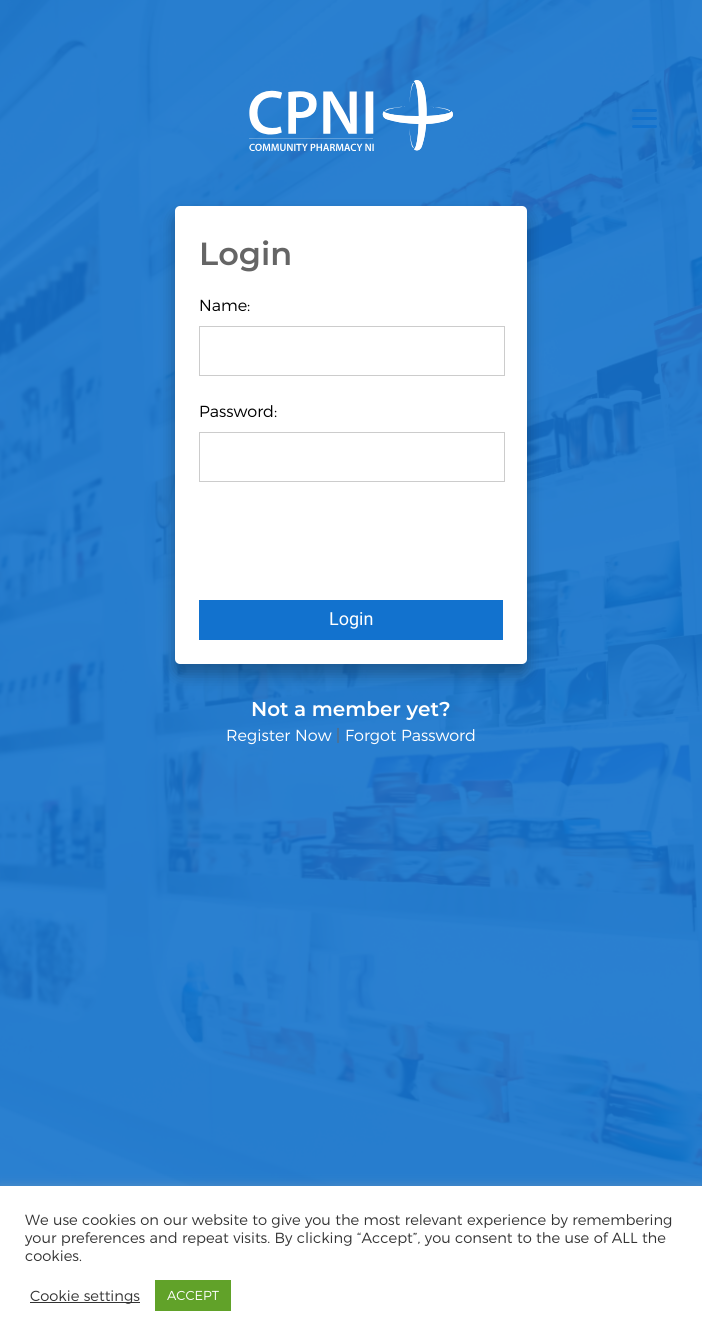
import math
import cairo

surface = cairo.ImageSurface(cairo.Format.RGB24, 702, 1341)
ctx = cairo.Context(surface)
options = cairo.FontOptions()
options.set_hint_metrics(cairo.HintMetrics.OFF)
options.set_hint_style(cairo.HintStyle.NONE)
ctx.set_font_options(options)
ctx.set_miter_limit(4)


def ink(r, g, b):
    ctx.set_source_rgb(r / 255, g / 255, b / 255)


def write(x, y, s, family, size, color, bold=False, italic=False):
    ctx.select_font_face(family, cairo.FontSlant.ITALIC if italic else cairo.FontSlant.NORMAL, cairo.FontWeight.BOLD if bold else cairo.FontWeight.NORMAL)
    ctx.set_font_size(size)
    ink(*color)
    ctx.move_to(x, y)
    ctx.show_text(s)


def block(x, y, w, h, *color):
    ink(*color)
    ctx.rectangle(x, y, w, h)
    ctx.fill()


def round_path(x, y, w, h, r):
    ctx.new_sub_path()
    for i, (u, v) in enumerate([(x + w - r, y + h - r), (x + r, y + h - r), (x + r, y + r), (x + w - r, y + r)]):
        ctx.arc(u, v, r, i * math.pi / 2, (i + 1) * math.pi / 2)
    ctx.close_path()


def blur_box(x, y, w, h, r, blur, alpha):
    ctx.push_group_with_content(cairo.Content.ALPHA)
    ctx.set_operator(cairo.Operator.SOURCE)
    for i in range(15, -16, -2):
        e = blur * i / 6
        if min(w, h) + 2 * e > 0:
            ctx.set_source_rgba(0, 0, 0, alpha * math.erfc((i - 1) / 8.5) / 2)
            round_path(x - e, y - e, w + 2 * e, h + 2 * e, max(0, min(r + e + blur * .6, min(w, h) / 2 + e)))
            ctx.fill()
    ctx.mask(ctx.pop_group())


def paste(path, x, y, w, h):
    ctx.save()
    ctx.set_source_surface(cairo.ImageSurface.create_from_png(path), x, y)
    ctx.rectangle(x, y, w, h)
    ctx.fill()
    ctx.restore()


s1 = dict(family="Montserrat SemiBold", size=32, color=(101, 101, 101))
s2 = dict(family="Montserrat Light", size=16, color=(0, 0, 0))
s3 = dict(family="Roboto", size=18, color=(255, 255, 255))
s4 = dict(family="Montserrat SemiBold", size=20, color=(255, 255, 255))
s5 = dict(family="Montserrat Light", size=16, color=(255, 255, 255))
s6 = dict(family="Montserrat Light", size=16, color=(101, 101, 101))
s7 = dict(family="Montserrat Light", size=14.65, color=(51, 51, 51))
s8 = dict(family="Montserrat Light", size=13, color=(255, 255, 255))

ink(18, 114, 206)
ctx.paint()
paste("pic1.png", 0, 0, 702, 1186)
ink(18, 114, 206)
round_path(632, 117, 25, 3, 1.5)
ctx.fill()
round_path(632, 109, 25, 3, 1.5)
ctx.fill()
round_path(632, 125, 25, 3, 1.5)
ctx.fill()
paste("pic2.png", 249, 80, 204, 71)
ink(0, 0, 0)
blur_box(175, 216, 352, 458, 5, 8, 0.3)
ink(255, 255, 255)
round_path(175, 206, 352, 458, 5)
ctx.fill()
write(199, 265, "Login", **s1)
write(199, 311, "Name:", **s2)
ctx.rectangle(199.5, 326.5, 305, 49)
ink(204, 204, 204)
ctx.set_line_width(1)
ctx.stroke()
write(199, 417, "Password:", **s2)
ctx.rectangle(199.5, 432.5, 305, 49)
ink(204, 204, 204)
ctx.stroke()
block(199, 600, 304, 40, 18, 114, 206)
write(329, 625, "Login", **s3)
write(251, 716, "Not a member yet?", **s4)
write(226, 741, "Register Now", **s5)
write(336, 741, "|", **s6)
write(345, 741, "Forgot Password", **s5)
ink(172, 171, 171)
blur_box(0, 1185, 702, 155, 0, 5, 0.3)
block(0, 1186, 702, 155, 255, 255, 255)
write(25, 1225, "We use cookies on our website to give you the most relevant experience by remembering", **s7)
write(25, 1243, "your preferences and repeat visits. By clicking “Accept”, you consent to the use of ALL the", **s7)
write(25, 1261, "cookies.", **s7)
block(30, 1302, 110, 1, 51, 51, 51)
write(30, 1301, "Cookie settings", **s7)
block(155, 1280, 76, 31, 97, 162, 41)
write(167, 1300, "ACCEPT", **s8)
surface.write_to_png("screenshot.png")
